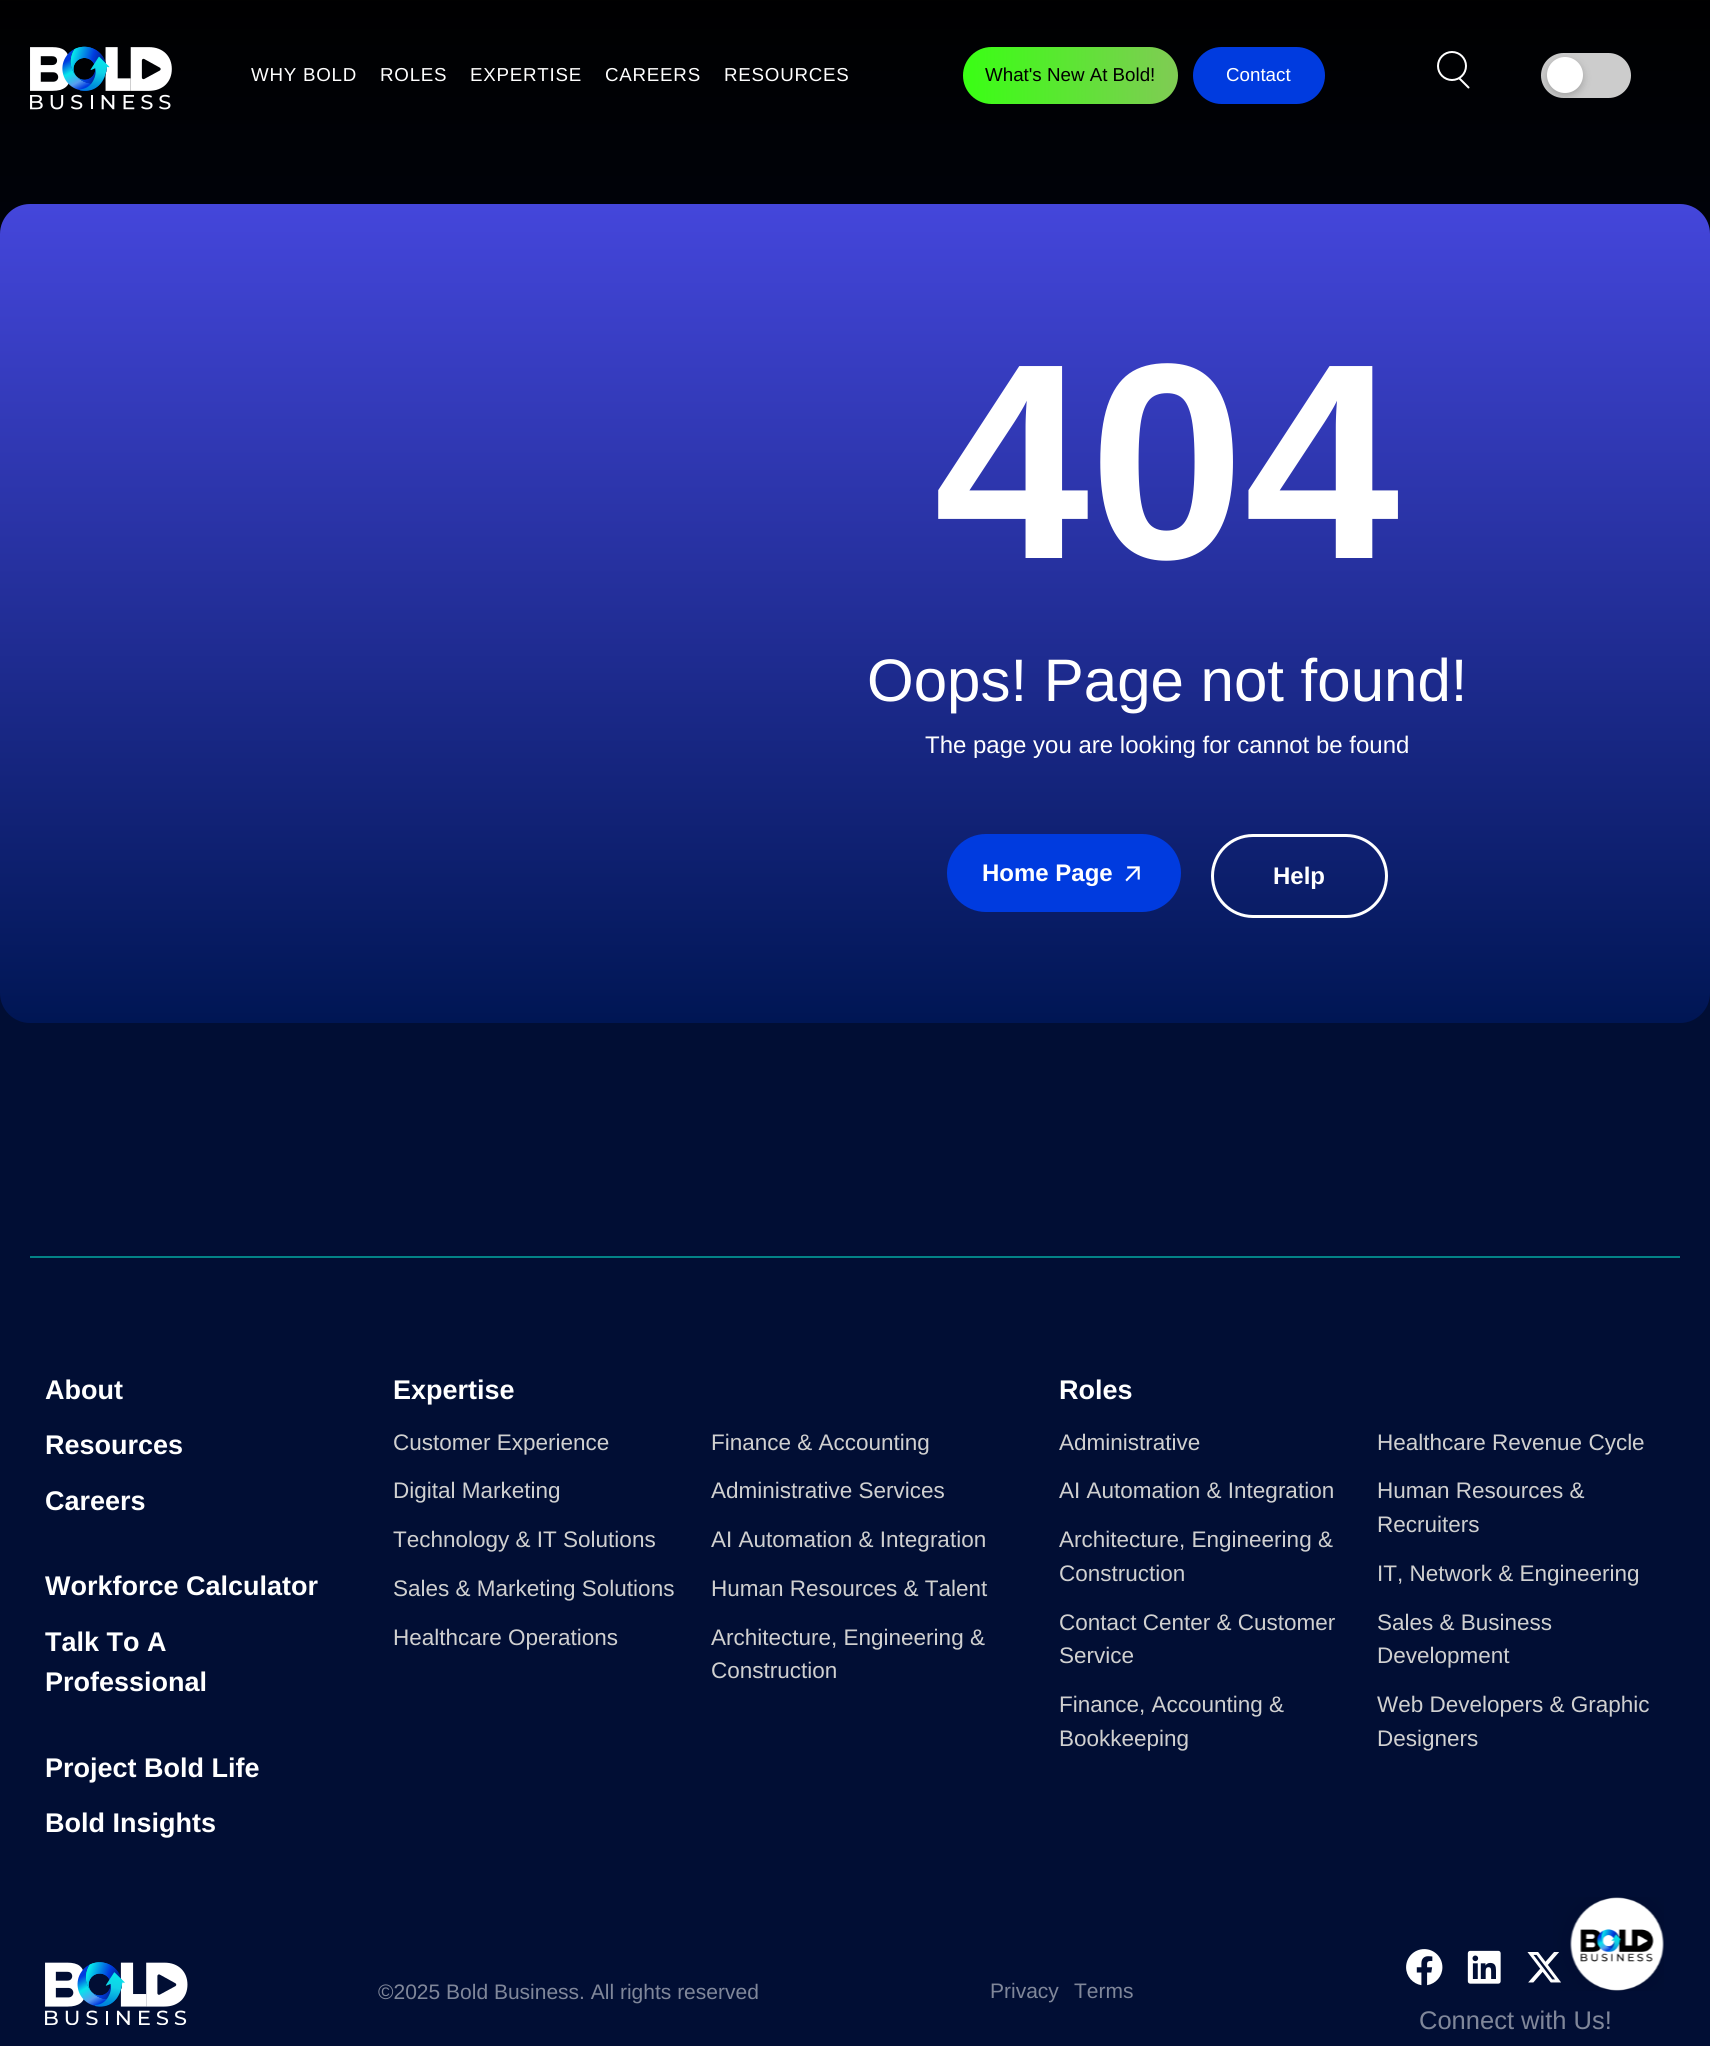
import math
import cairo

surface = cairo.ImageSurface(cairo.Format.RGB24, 1710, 2046)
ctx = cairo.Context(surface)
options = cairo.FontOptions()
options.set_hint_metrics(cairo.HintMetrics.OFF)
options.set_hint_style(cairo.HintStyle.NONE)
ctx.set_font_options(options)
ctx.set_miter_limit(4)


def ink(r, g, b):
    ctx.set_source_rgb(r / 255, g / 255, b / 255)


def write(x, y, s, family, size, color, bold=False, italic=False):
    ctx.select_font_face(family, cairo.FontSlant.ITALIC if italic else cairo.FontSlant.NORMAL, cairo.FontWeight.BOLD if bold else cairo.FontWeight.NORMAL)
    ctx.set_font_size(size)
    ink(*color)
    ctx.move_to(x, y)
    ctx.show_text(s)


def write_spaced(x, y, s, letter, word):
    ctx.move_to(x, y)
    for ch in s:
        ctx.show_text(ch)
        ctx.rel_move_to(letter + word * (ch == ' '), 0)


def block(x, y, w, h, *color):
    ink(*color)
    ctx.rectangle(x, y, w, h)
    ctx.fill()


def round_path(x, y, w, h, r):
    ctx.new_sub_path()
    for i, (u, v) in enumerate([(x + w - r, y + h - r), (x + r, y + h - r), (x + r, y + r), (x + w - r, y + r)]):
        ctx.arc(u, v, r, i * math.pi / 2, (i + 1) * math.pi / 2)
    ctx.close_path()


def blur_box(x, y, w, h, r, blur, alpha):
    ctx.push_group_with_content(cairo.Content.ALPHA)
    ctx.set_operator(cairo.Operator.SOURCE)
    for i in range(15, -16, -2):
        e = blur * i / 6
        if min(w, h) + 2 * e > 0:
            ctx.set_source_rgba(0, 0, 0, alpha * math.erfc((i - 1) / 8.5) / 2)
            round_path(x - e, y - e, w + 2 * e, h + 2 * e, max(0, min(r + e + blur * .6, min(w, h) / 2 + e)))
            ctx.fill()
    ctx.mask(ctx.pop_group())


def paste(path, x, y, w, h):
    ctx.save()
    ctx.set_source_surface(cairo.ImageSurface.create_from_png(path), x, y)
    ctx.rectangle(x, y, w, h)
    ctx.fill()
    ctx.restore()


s1 = dict(family="Liberation Sans", size=18.75, color=(0, 0, 0))
s2 = dict(family="Liberation Sans", size=18.75, color=(255, 255, 255))
s3 = dict(family="Liberation Sans", size=279, color=(255, 255, 255), bold=True)
s4 = dict(family="Liberation Sans", size=60, color=(255, 255, 255))
s5 = dict(family="Liberation Sans", size=24, color=(255, 255, 255))
s6 = dict(family="Liberation Sans", size=24, color=(255, 255, 255), bold=True)
s7 = dict(family="Liberation Sans", size=27, color=(255, 255, 255), bold=True)
s8 = dict(family="Liberation Sans", size=22.5, color=(208, 208, 208))
s9 = dict(family="Liberation Sans", size=21, color=(128, 135, 154))
s10 = dict(family="Liberation Sans", size=25.5, color=(128, 135, 154))

ink(255, 255, 255)
ctx.paint()
gradient = cairo.LinearGradient(855, -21, 855, 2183)
gradient.add_color_stop_rgba(0, 0, 0, 0, 1)
gradient.add_color_stop_rgba(1, 0.004, 0.086, 0.329, 1)
ctx.set_source(gradient)
ctx.rectangle(0, 1, 1710, 233)
ctx.fill()
gradient = cairo.LinearGradient(855, 0, 855, 150)
gradient.add_color_stop_rgba(0, 0, 0, 0, 1)
gradient.add_color_stop_rgba(1, 0, 0, 0, 0)
ctx.set_source(gradient)
ctx.rectangle(0, 0, 1710, 1)
ctx.fill()
paste("pic1.png", 30, 46, 142, 64)
ctx.select_font_face("Liberation Sans")
ctx.set_font_size(18.75)
ink(255, 255, 255)
write_spaced(251, 81, "WHY BOLD", 0.75, 0)
write_spaced(380, 81, "ROLES", 0.75, 0)
write_spaced(470, 81, "EXPERTISE", 0.75, 0)
write_spaced(605, 81, "CAREERS", 0.75, 0)
write_spaced(724, 81, "RESOURCES", 0.75, 0)
gradient = cairo.LinearGradient(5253, 103, 963, 104)
gradient.add_color_stop_rgba(0, 0.224, 1, 0.078, 1)
gradient.add_color_stop_rgba(0.14, 0, 0.941, 1, 1)
gradient.add_color_stop_rgba(0.29, 1, 1, 0, 1)
gradient.add_color_stop_rgba(0.43, 1, 0, 1, 1)
gradient.add_color_stop_rgba(0.57, 0.541, 1, 0, 1)
gradient.add_color_stop_rgba(0.71, 0, 1, 1, 1)
gradient.add_color_stop_rgba(0.86, 1, 0.431, 0.78, 1)
gradient.add_color_stop_rgba(1, 0.224, 1, 0.078, 1)
ctx.set_source(gradient)
round_path(963, 47, 215, 57, 28.5)
ctx.fill()
write(985, 81, "What's New At Bold!", **s1)
ink(0, 59, 223)
round_path(1194.5, 48.5, 129, 54, 27)
ctx.fill_preserve()
ctx.set_line_width(3)
ctx.stroke()
write(1226, 81, "Contact", **s2)
ctx.new_path()
ctx.arc(1452, 66, 14, 0, 2 * math.pi)
ctx.set_line_width(2)
ctx.stroke()
ctx.new_path()
ctx.move_to(1459.5, 78.5)
ctx.line_to(1468.5, 87.5)
ctx.set_line_cap(cairo.LineCap.ROUND)
ctx.set_line_join(cairo.LineJoin.ROUND)
ctx.stroke()
ink(204, 204, 204)
round_path(1544, 56, 84, 39, 19.5)
ctx.fill_preserve()
ctx.set_line_width(6)
ctx.set_line_cap(cairo.LineCap.BUTT)
ctx.set_line_join(cairo.LineJoin.MITER)
ctx.stroke()
ink(0, 0, 0)
blur_box(1547, 60, 36, 36, 18, 4, 0.2)
ink(255, 255, 255)
ctx.arc(1565, 75, 18, 0, 2 * math.pi)
ctx.fill()
block(0, 993, 1710, 1053, 1, 14, 52)
gradient = cairo.LinearGradient(855, 204, 855, 1023)
gradient.add_color_stop_rgba(0, 0.267, 0.275, 0.859, 1)
gradient.add_color_stop_rgba(1, 0, 0.086, 0.329, 1)
ctx.set_source(gradient)
round_path(0, 204, 1710, 819, 30)
ctx.fill()
write(934, 558, "404", **s3)
write(867, 701, "Oops! Page not found!", **s4)
write(925, 753, "The page you are looking for cannot be found", **s5)
ink(0, 59, 223)
round_path(947, 834, 234, 78, 39)
ctx.fill()
write(982, 881, "Home Page", **s6)
paste("pic2.png", 1125, 866, 15, 16)
round_path(1212.5, 835.5, 174, 81, 40.5)
ctx.set_line_width(3)
ctx.stroke()
write(1273, 884, "Help", **s6)
block(30, 1256, 1650, 2, 3, 130, 134)
write(45, 1399, "About", **s7)
write(45, 1454, "Resources", **s7)
write(45, 1510, "Careers", **s7)
write(45, 1595, "Workforce Calculator", **s7)
write(45, 1651, "Talk To A", **s7)
write(45, 1691, "Professional", **s7)
write(45, 1777, "Project Bold Life", **s7)
write(45, 1832, "Bold Insights", **s7)
write(393, 1399, "Expertise", **s7)
write(393, 1450, "Customer Experience", **s8)
write(393, 1498, "Digital Marketing", **s8)
write(393, 1547, "Technology & IT Solutions", **s8)
write(393, 1596, "Sales & Marketing Solutions", **s8)
write(393, 1645, "Healthcare Operations", **s8)
write(711, 1450, "Finance & Accounting", **s8)
write(711, 1498, "Administrative Services", **s8)
write(711, 1547, "AI Automation & Integration", **s8)
write(711, 1596, "Human Resources & Talent", **s8)
write(711, 1645, "Architecture, Engineering &", **s8)
write(711, 1678, "Construction", **s8)
write(1059, 1399, "Roles", **s7)
write(1059, 1450, "Administrative", **s8)
write(1059, 1498, "AI Automation & Integration", **s8)
write(1059, 1547, "Architecture, Engineering &", **s8)
write(1059, 1581, "Construction", **s8)
write(1059, 1630, "Contact Center & Customer", **s8)
write(1059, 1663, "Service", **s8)
write(1059, 1712, "Finance, Accounting &", **s8)
write(1059, 1746, "Bookkeeping", **s8)
write(1377, 1450, "Healthcare Revenue Cycle", **s8)
write(1377, 1498, "Human Resources &", **s8)
write(1377, 1532, "Recruiters", **s8)
write(1377, 1581, "IT, Network & Engineering", **s8)
write(1377, 1630, "Sales & Business", **s8)
write(1377, 1663, "Development", **s8)
write(1377, 1712, "Web Developers & Graphic", **s8)
write(1377, 1746, "Designers", **s8)
paste("pic3.png", 45, 1962, 143, 63)
write(378, 1999, "©2025 Bold Business. All rights reserved", **s9)
write(990, 1998, "Privacy", **s9)
write(1074, 1998, "Terms", **s9)
paste("pic4.png", 1406, 1949, 37, 37)
paste("pic5.png", 1467, 1950, 34, 34)
paste("pic6.png", 1527, 1952, 34, 31)
write(1419, 2029, "Connect with Us!", **s10)
paste("pic7.png", 1553, 1897, 111, 94)
surface.write_to_png("screenshot.png")
